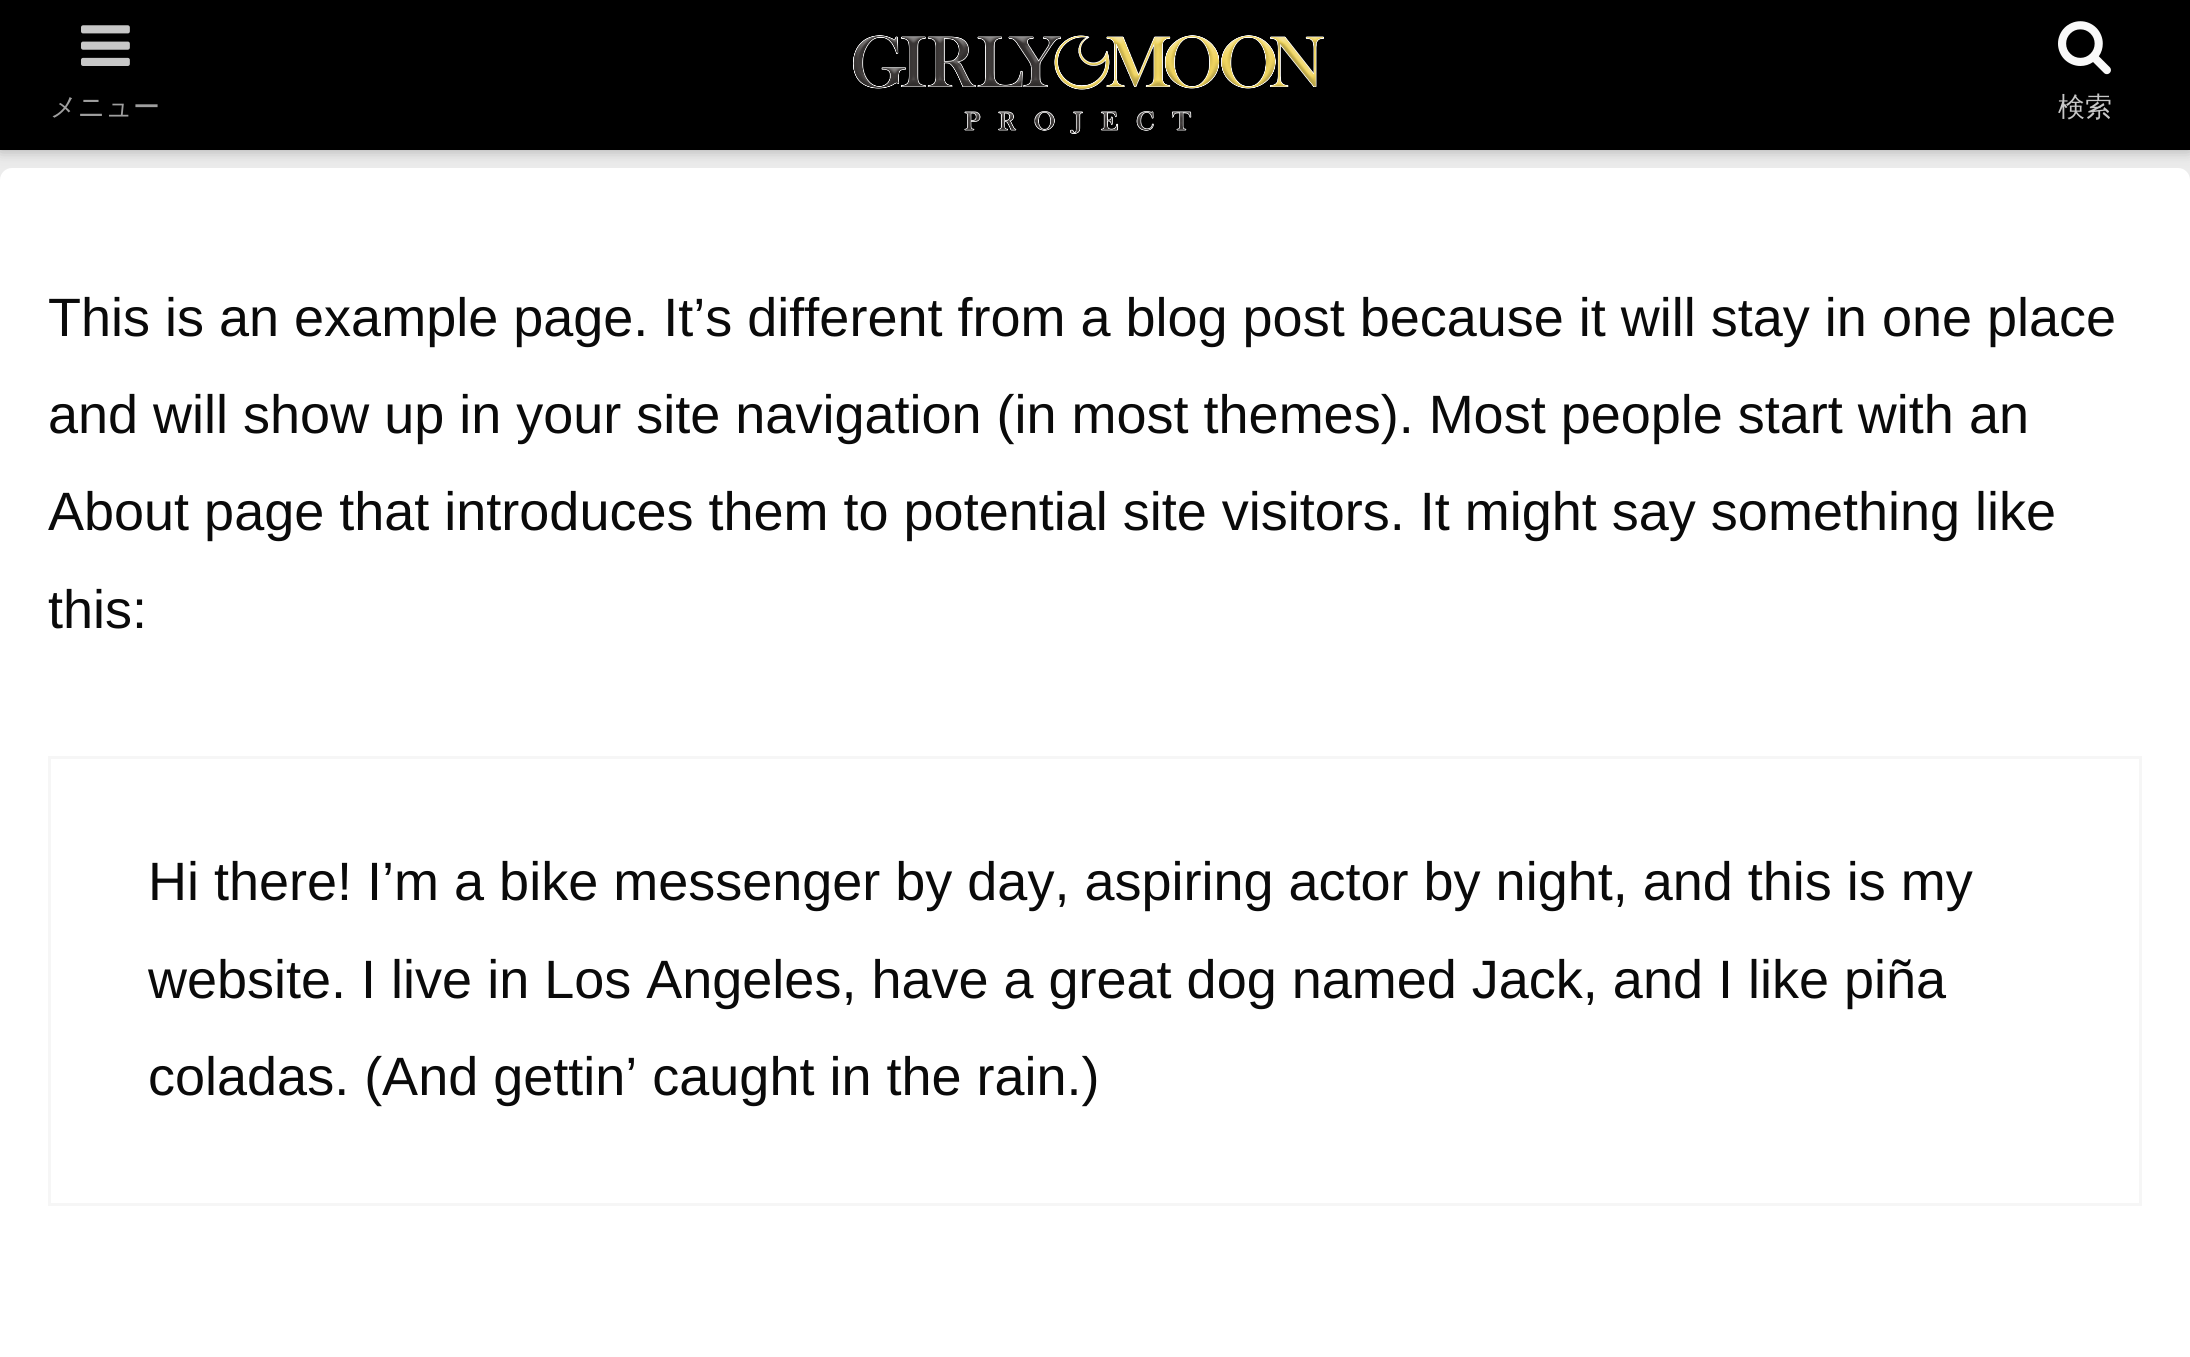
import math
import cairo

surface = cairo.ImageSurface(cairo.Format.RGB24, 2190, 1357)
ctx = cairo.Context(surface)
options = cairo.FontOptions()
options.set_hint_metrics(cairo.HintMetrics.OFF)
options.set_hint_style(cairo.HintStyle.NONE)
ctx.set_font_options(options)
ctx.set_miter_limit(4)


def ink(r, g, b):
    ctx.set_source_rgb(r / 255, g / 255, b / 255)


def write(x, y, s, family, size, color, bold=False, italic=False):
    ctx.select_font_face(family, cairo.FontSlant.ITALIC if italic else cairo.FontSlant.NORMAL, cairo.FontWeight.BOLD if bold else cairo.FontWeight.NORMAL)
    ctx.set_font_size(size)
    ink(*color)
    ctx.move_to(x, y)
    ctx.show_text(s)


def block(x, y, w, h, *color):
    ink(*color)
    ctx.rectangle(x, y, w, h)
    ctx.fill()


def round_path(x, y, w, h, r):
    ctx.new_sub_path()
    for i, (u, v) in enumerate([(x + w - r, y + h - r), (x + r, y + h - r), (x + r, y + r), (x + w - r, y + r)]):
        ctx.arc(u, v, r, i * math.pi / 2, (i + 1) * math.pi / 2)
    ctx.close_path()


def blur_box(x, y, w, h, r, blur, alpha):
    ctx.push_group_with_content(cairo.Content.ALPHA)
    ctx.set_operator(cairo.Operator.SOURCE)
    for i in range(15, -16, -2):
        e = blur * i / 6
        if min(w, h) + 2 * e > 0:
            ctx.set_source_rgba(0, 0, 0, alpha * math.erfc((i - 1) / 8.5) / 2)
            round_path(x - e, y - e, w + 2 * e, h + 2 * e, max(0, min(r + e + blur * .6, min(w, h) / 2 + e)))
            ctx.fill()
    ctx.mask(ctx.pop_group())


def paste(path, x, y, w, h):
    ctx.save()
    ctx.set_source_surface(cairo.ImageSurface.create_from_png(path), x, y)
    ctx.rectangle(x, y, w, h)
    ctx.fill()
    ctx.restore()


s1 = dict(family="WenQuanYi Zen Hei Medium", size=27, color=(159, 159, 159))
s2 = dict(family="WenQuanYi Zen Hei Medium", size=27, color=(199, 199, 199))
s3 = dict(family="Liberation Sans", size=54, color=(10, 10, 10))

ink(236, 236, 236)
ctx.paint()
ink(255, 255, 255)
round_path(0, 168, 2190, 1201, 12)
ctx.fill()
ink(169, 169, 169)
blur_box(0, 0, 2190, 150, 0, 7.5, 1)
block(0, 0, 2190, 150, 0, 0, 0)
paste("pic1.png", 81, 25, 49, 41)
write(50, 116, "メニュー", **s1)
paste("pic2.png", 853, 35, 471, 99)
paste("pic3.png", 2058, 21, 53, 54)
write(2058, 116, "検索", **s2)
write(48, 336, "This is an example page. It’s different from a blog post because it will stay in one place", **s3)
write(48, 433, "and will show up in your site navigation (in most themes). Most people start with an", **s3)
write(48, 530, "About page that introduces them to potential site visitors. It might say something like", **s3)
write(48, 628, "this:", **s3)
ctx.rectangle(49.5, 757.5, 2091, 447)
ink(246, 246, 246)
ctx.set_line_width(3)
ctx.stroke()
write(148, 900, "Hi there! I’m a bike messenger by day, aspiring actor by night, and this is my", **s3)
write(148, 998, "website. I live in Los Angeles, have a great dog named Jack, and I like piña", **s3)
write(148, 1095, "coladas. (And gettin’ caught in the rain.)", **s3)
surface.write_to_png("screenshot.png")
